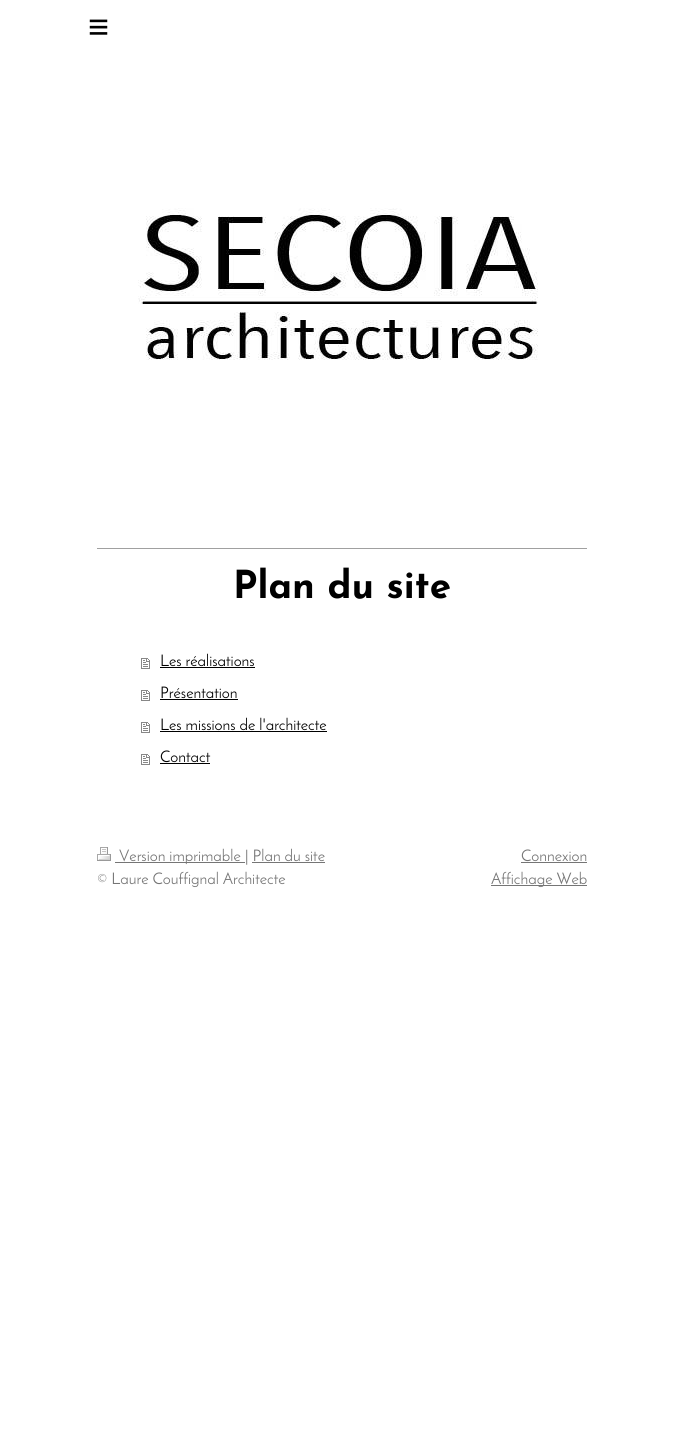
import math
import cairo

surface = cairo.ImageSurface(cairo.Format.RGB24, 684, 1453)
ctx = cairo.Context(surface)
options = cairo.FontOptions()
options.set_hint_metrics(cairo.HintMetrics.OFF)
options.set_hint_style(cairo.HintStyle.NONE)
ctx.set_font_options(options)
ctx.set_miter_limit(4)


def ink(r, g, b):
    ctx.set_source_rgb(r / 255, g / 255, b / 255)


def write(x, y, s, family, size, color, bold=False, italic=False):
    ctx.select_font_face(family, cairo.FontSlant.ITALIC if italic else cairo.FontSlant.NORMAL, cairo.FontWeight.BOLD if bold else cairo.FontWeight.NORMAL)
    ctx.set_font_size(size)
    ink(*color)
    ctx.move_to(x, y)
    ctx.show_text(s)


def write_spaced(x, y, s, letter, word):
    ctx.move_to(x, y)
    for ch in s:
        ctx.show_text(ch)
        ctx.rel_move_to(letter + word * (ch == ' '), 0)


def block(x, y, w, h, *color):
    ink(*color)
    ctx.rectangle(x, y, w, h)
    ctx.fill()


def paste(path, x, y, w, h):
    ctx.save()
    ctx.set_source_surface(cairo.ImageSurface.create_from_png(path), x, y)
    ctx.rectangle(x, y, w, h)
    ctx.fill()
    ctx.restore()


s1 = dict(family="Josefin Sans", size=38.5, color=(0, 0, 0), bold=True)
s2 = dict(family="Josefin Sans", size=16, color=(0, 0, 0))
s3 = dict(family="Josefin Sans", size=16, color=(117, 117, 117))

ink(255, 255, 255)
ctx.paint()
ctx.select_font_face("Liberation Sans")
ctx.set_font_size(36)
ink(0, 0, 0)
write_spaced(88, 39, "≡", 10, 0)
paste("pic1.png", 138, 208, 400, 152)
block(97, 548, 490, 1, 160, 160, 160)
write(233, 598, "Plan du site", **s1)
paste("pic2.png", 141, 658, 9, 11)
write(160, 666, "Les réalisations", **s2)
block(160, 667, 95, 1, 0, 0, 0)
paste("pic2.png", 141, 690, 9, 11)
write(160, 698, "Présentation", **s2)
block(160, 699, 78, 1, 0, 0, 0)
paste("pic2.png", 141, 722, 9, 11)
write(160, 730, "Les missions de l'architecte", **s2)
block(160, 731, 167, 1, 0, 0, 0)
paste("pic2.png", 141, 754, 9, 11)
write(160, 762, "Contact", **s2)
block(160, 763, 50, 1, 0, 0, 0)
paste("pic3.png", 97, 847, 14, 14)
block(115, 862, 130, 1, 117, 117, 117)
write(119, 861, "Version imprimable | Plan du site", **s3)
block(252, 862, 73, 1, 117, 117, 117)
write(97, 884, "© Laure Couffignal Architecte", **s3)
write(521, 861, "Connexion", **s3)
block(521, 862, 66, 1, 117, 117, 117)
block(491, 885, 96, 1, 117, 117, 117)
write(491, 884, "Affichage Web", **s3)
surface.write_to_png("screenshot.png")
